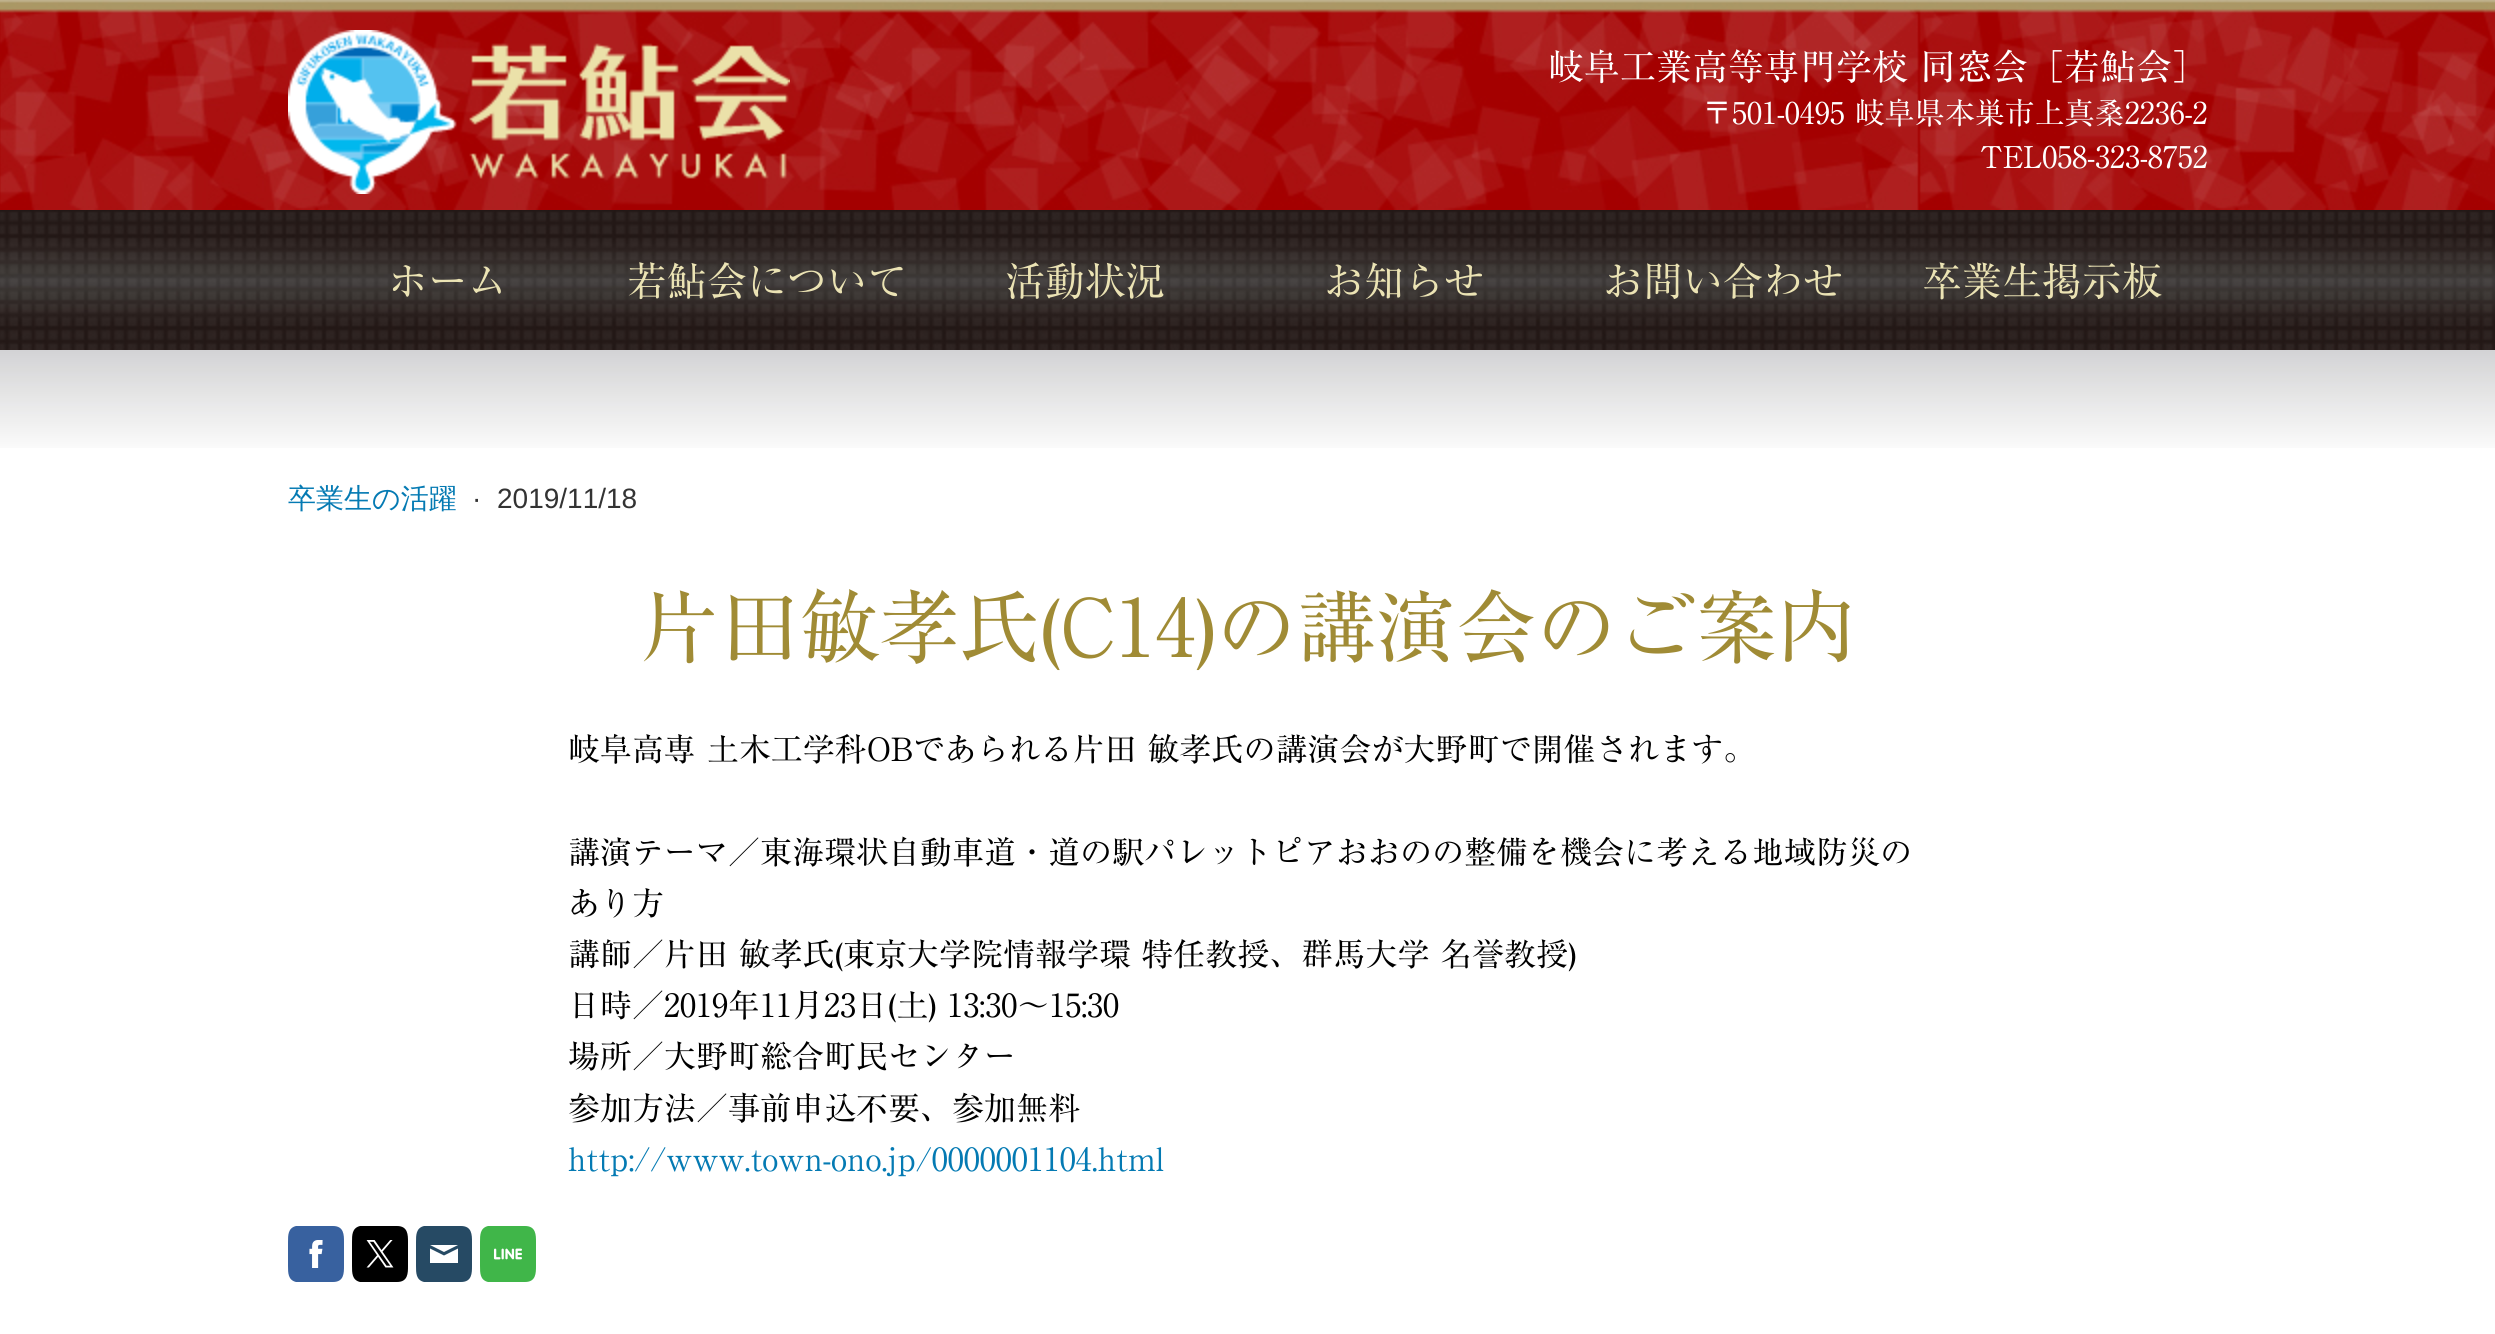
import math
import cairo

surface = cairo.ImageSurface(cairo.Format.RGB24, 2495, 1334)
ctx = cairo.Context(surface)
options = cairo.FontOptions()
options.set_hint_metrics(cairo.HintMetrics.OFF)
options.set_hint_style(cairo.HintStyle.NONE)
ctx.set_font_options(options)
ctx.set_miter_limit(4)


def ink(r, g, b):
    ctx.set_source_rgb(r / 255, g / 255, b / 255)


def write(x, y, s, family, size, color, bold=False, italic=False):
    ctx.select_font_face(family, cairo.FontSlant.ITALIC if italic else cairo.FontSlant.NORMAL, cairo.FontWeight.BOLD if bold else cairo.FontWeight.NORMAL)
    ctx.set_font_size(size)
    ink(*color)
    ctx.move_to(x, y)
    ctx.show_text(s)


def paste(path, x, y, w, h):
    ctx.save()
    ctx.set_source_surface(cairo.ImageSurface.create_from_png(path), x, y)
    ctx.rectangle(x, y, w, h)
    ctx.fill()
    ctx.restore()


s1 = dict(family="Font", size=36, color=(255, 255, 255))
s2 = dict(family="Font", size=30, color=(255, 255, 255))
s3 = dict(family="Font", size=40, color=(235, 227, 180))
s4 = dict(family="WenQuanYi Zen Hei Medium", size=28, color=(4, 122, 179))
s5 = dict(family="Liberation Sans", size=28, color=(51, 51, 51))
s6 = dict(family="Font", size=80, color=(160, 139, 53))
s7 = dict(family="Font", size=32, color=(0, 0, 0))
s8 = dict(family="Font", size=32, color=(4, 122, 179))

ink(255, 255, 255)
ctx.paint()
paste("pic1.png", 0, 0, 2495, 210)
paste("pic2.png", 288, 30, 502, 164)
write(1548, 80, "岐阜工業高等専門学校 同窓会［若鮎会］", **s1)
write(1702, 124, "〒501-0495 岐阜県本巣市上真桑2236-2", **s2)
write(1980, 168, "TEL058-323-8752", **s2)
paste("pic3.png", 0, 210, 2495, 140)
write(388, 296, "ホーム", **s3)
write(627, 296, "若鮎会について", **s3)
write(1005, 296, "活動状況", **s3)
write(1324, 296, "お知らせ", **s3)
write(1603, 296, "お問い合わせ", **s3)
write(1922, 296, "卒業生掲示板", **s3)
paste("pic4.png", 0, 350, 2495, 98)
write(288, 508, "卒業生の活躍", **s4)
write(472, 508, "·", **s5)
write(497, 508, "2019/11/18", **s5)
write(640, 657, "片田敏孝氏(C14)の講演会のご案内", **s6)
write(568, 761, "岐阜高専 土木工学科OBであられる片田 敏孝氏の講演会が大野町で開催されます。", **s7)
write(568, 864, "講演テーマ／東海環状自動車道・道の駅パレットピアおおのの整備を機会に考える地域防災の", **s7)
write(568, 915, "あり方", **s7)
write(568, 966, "講師／片田 敏孝氏(東京大学院情報学環 特任教授、群馬大学 名誉教授)", **s7)
write(568, 1017, "日時／2019年11月23日(土) 13:30～15:30", **s7)
write(568, 1068, "場所／大野町総合町民センター", **s7)
write(568, 1120, "参加方法／事前申込不要、参加無料", **s7)
write(568, 1171, "http://www.town-ono.jp/0000001104.html", **s8)
ink(56, 97, 159)
ctx.new_path()
ctx.move_to(333, 1282)
ctx.line_to(296, 1282)
ctx.curve_to(288, 1280, 288, 1273, 288, 1266)
ctx.line_to(288, 1242)
ctx.curve_to(288, 1235, 288, 1228, 296, 1226)
ctx.line_to(333, 1226)
ctx.curve_to(344, 1226, 344, 1235, 344, 1242)
ctx.line_to(344, 1266)
ctx.curve_to(344, 1273, 344, 1282, 333, 1282)
ctx.close_path()
ctx.fill()
paste("pic5.png", 309, 1240, 14, 28)
ink(0, 0, 0)
ctx.new_path()
ctx.move_to(397, 1282)
ctx.line_to(360, 1282)
ctx.curve_to(352, 1280, 352, 1273, 352, 1266)
ctx.line_to(352, 1242)
ctx.curve_to(352, 1235, 352, 1228, 360, 1226)
ctx.line_to(397, 1226)
ctx.curve_to(408, 1226, 408, 1235, 408, 1242)
ctx.line_to(408, 1266)
ctx.curve_to(408, 1273, 408, 1282, 397, 1282)
ctx.close_path()
ctx.fill()
paste("pic6.png", 366, 1240, 28, 28)
ink(38, 74, 100)
ctx.new_path()
ctx.move_to(461, 1282)
ctx.line_to(424, 1282)
ctx.curve_to(416, 1280, 416, 1273, 416, 1266)
ctx.line_to(416, 1242)
ctx.curve_to(416, 1235, 416, 1228, 424, 1226)
ctx.line_to(461, 1226)
ctx.curve_to(472, 1226, 472, 1235, 472, 1242)
ctx.line_to(472, 1266)
ctx.curve_to(472, 1273, 472, 1282, 461, 1282)
ctx.close_path()
ctx.fill()
ink(255, 255, 255)
ctx.new_path()
ctx.move_to(458, 1263)
ctx.line_to(430, 1263)
ctx.line_to(430, 1248.5)
ctx.line_to(444, 1255.5)
ctx.line_to(458, 1248.5)
ctx.close_path()
ctx.move_to(458, 1245)
ctx.line_to(430, 1245)
ctx.line_to(444, 1252)
ctx.close_path()
ctx.fill()
ink(64, 182, 73)
ctx.new_path()
ctx.move_to(525, 1282)
ctx.line_to(488, 1282)
ctx.curve_to(480, 1280, 480, 1273, 480, 1266)
ctx.line_to(480, 1242)
ctx.curve_to(480, 1235, 480, 1228, 488, 1226)
ctx.line_to(525, 1226)
ctx.curve_to(536, 1226, 536, 1235, 536, 1242)
ctx.line_to(536, 1266)
ctx.curve_to(536, 1273, 536, 1282, 525, 1282)
ctx.close_path()
ctx.fill()
paste("pic7.png", 493, 1248, 29, 12)
surface.write_to_png("screenshot.png")
